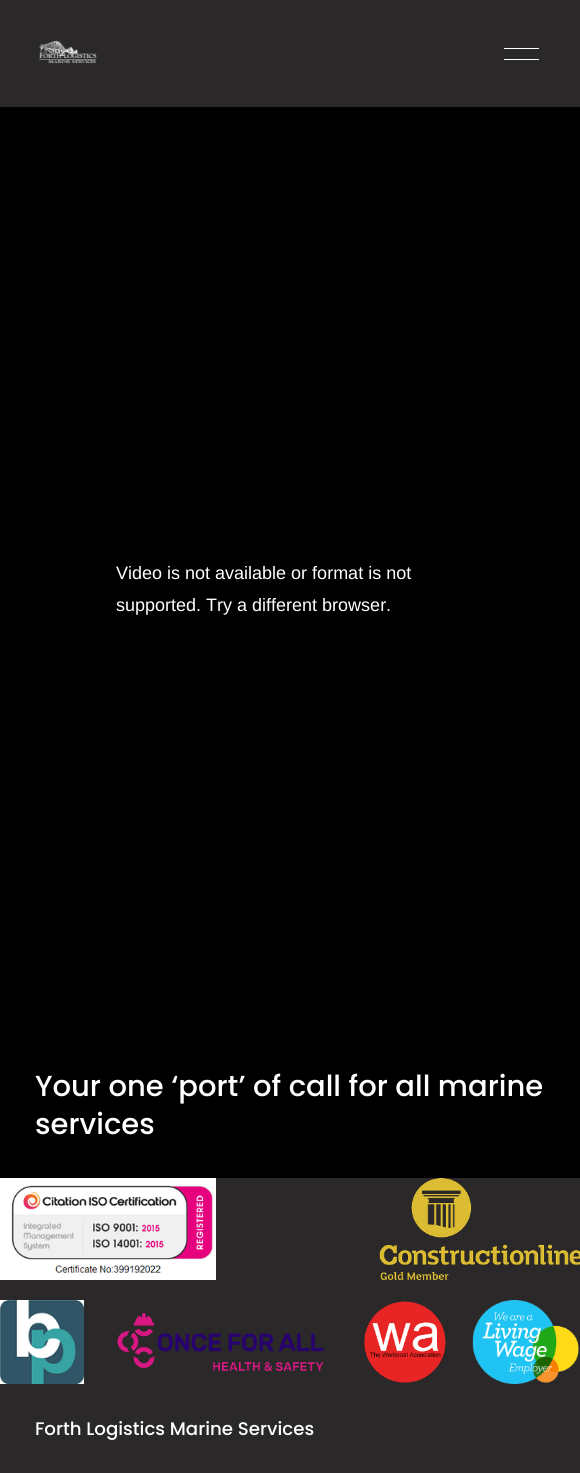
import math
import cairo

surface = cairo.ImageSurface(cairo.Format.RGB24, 580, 1473)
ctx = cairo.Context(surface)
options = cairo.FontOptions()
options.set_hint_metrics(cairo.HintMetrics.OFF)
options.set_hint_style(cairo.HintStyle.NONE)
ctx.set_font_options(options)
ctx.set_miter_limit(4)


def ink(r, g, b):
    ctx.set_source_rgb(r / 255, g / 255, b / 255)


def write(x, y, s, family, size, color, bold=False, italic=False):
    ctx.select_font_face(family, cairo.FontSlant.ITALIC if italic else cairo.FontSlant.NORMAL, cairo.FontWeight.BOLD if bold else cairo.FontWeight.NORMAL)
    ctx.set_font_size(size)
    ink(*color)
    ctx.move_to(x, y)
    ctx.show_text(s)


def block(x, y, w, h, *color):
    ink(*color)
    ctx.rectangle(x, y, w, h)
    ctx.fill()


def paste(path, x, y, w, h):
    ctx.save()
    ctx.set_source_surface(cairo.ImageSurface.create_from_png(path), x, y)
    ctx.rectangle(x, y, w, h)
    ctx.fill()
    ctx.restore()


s1 = dict(family="Liberation Sans", size=18, color=(255, 255, 255))
s2 = dict(family="Poppins Medium", size=29, color=(255, 255, 255))
s3 = dict(family="Poppins Medium", size=18.2, color=(255, 255, 255))

ink(42, 40, 41)
ctx.paint()
paste("pic1.png", 39, 40, 58, 24)
block(504, 48, 35, 1, 255, 255, 255)
block(504, 59, 35, 1, 255, 255, 255)
block(0, 107, 580, 1071, 0, 0, 0)
write(116, 579, "Video is not available or format is not", **s1)
write(116, 611, "supported. Try a different browser.", **s1)
write(35, 1096, "Your one ‘port’ of call for all marine", **s2)
write(35, 1134, "services", **s2)
paste("pic2.png", 0, 1178, 216, 102)
paste("pic3.png", 379, 1178, 201, 102)
paste("pic4.png", 0, 1300, 84, 84)
paste("pic5.png", 117, 1313, 207, 58)
paste("pic6.png", 364, 1301, 82, 82)
paste("pic7.png", 472, 1300, 107, 84)
write(35, 1435, "Forth Logistics Marine Services", **s3)
surface.write_to_png("screenshot.png")
